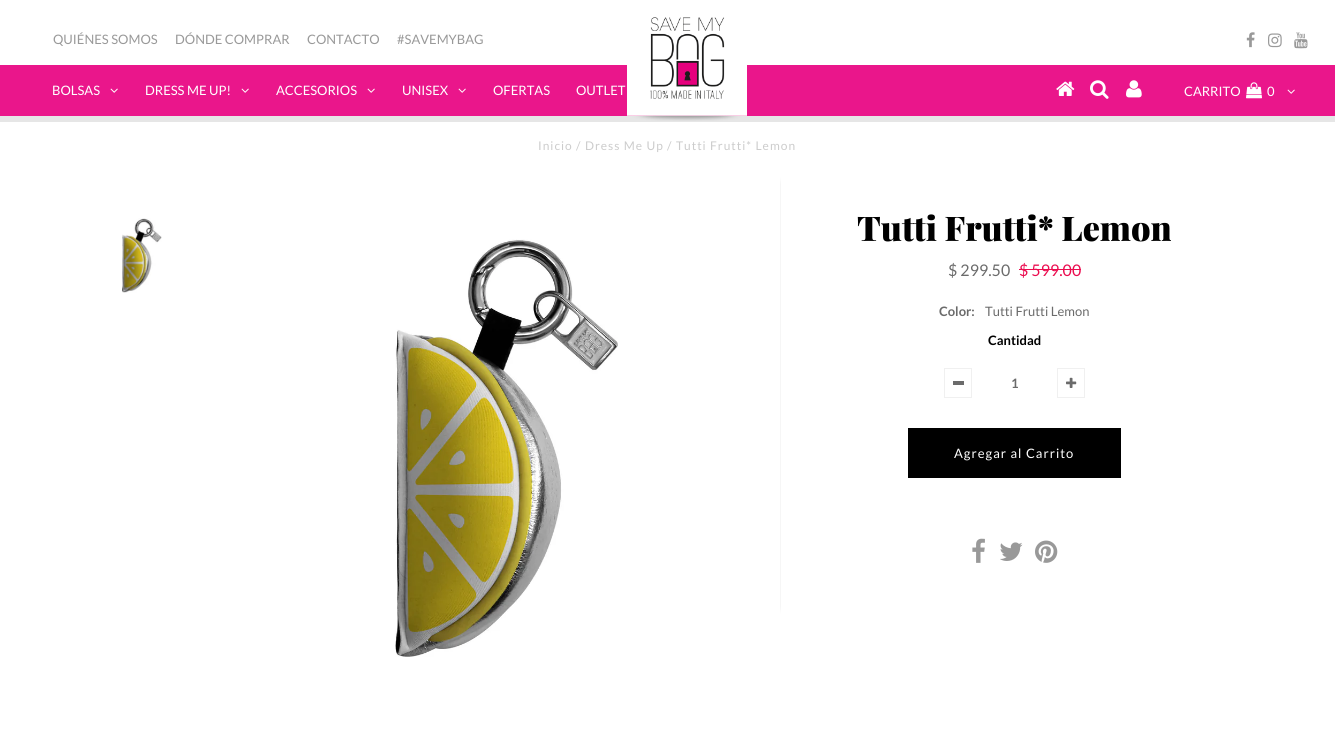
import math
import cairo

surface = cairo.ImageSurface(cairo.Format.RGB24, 1335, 751)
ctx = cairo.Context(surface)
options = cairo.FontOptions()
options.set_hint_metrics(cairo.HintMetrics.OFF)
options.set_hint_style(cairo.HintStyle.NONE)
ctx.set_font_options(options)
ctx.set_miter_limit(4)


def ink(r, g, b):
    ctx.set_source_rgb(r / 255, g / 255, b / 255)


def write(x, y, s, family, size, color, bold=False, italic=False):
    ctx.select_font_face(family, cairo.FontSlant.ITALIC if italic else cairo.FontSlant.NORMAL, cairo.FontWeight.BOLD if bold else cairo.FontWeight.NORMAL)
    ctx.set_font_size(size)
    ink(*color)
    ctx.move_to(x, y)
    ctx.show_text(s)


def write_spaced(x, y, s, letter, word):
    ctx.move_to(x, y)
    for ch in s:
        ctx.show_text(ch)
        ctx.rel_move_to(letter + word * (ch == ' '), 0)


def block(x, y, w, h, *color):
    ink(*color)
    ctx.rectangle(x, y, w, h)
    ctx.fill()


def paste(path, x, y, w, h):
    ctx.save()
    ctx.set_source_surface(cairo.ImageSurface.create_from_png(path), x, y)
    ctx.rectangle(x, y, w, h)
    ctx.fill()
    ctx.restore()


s1 = dict(family="Lato", size=13, color=(153, 153, 153))
s2 = dict(family="Lato", size=13, color=(255, 255, 255))
s3 = dict(family="Playfair Display Black", size=34, color=(0, 0, 0))
s4 = dict(family="Lato", size=16, color=(107, 107, 107))
s5 = dict(family="Lato", size=16, color=(235, 12, 79))
s6 = dict(family="Lato", size=13, color=(107, 107, 107), bold=True)
s7 = dict(family="Lato", size=13, color=(107, 107, 107))
s8 = dict(family="Lato", size=13, color=(0, 0, 0), bold=True)

ink(255, 255, 255)
ctx.paint()
block(0, 116, 1335, 6, 230, 230, 230)
block(0, 65, 1335, 51, 234, 22, 139)
paste("pic1.png", 627, 17, 120, 104)
write(53, 44, "QUIÉNES SOMOS", **s1)
write(175, 44, "DÓNDE COMPRAR", **s1)
write(307, 44, "CONTACTO", **s1)
write(397, 44, "#SAVEMYBAG", **s1)
paste("pic2.png", 1246, 32, 9, 16)
paste("pic3.png", 1268, 33, 14, 15)
paste("pic4.png", 1294, 32, 14, 17)
write(52, 95, "BOLSAS", **s2)
paste("pic5.png", 110, 88, 8, 5)
write(145, 95, "DRESS ME UP!", **s2)
paste("pic5.png", 241, 88, 8, 5)
write(276, 95, "ACCESORIOS", **s2)
paste("pic5.png", 367, 88, 8, 5)
write(402, 95, "UNISEX", **s2)
paste("pic5.png", 458, 88, 8, 5)
write(493, 95, "OFERTAS", **s2)
write(576, 95, "OUTLET", **s2)
paste("pic6.png", 1056, 81, 19, 15)
paste("pic7.png", 1090, 80, 19, 19)
paste("pic8.png", 1126, 80, 16, 18)
write(1184, 96, "CARRITO", **s2)
paste("pic9.png", 1246, 82, 16, 17)
write(1267, 96, "0", **s2)
paste("pic5.png", 1287, 89, 8, 5)
ctx.set_font_size(12)
ink(204, 204, 204)
write_spaced(538, 150, "Inicio / Dress Me Up / Tutti Frutti* Lemon", 1, 0)
paste("pic10.png", 122, 218, 40, 75)
paste("pic11.png", 395, 239, 223, 418)
ink(246, 246, 246)
ctx.new_path()
ctx.move_to(780, 614)
ctx.line_to(780, 177)
ctx.line_to(781, 184)
ctx.line_to(781, 607)
ctx.close_path()
ctx.fill()
write(857, 241, "Tutti Frutti* Lemon", **s3)
write(948, 276, "$ 299.50", **s4)
write(1019, 276, "$ 599.00", **s5)
block(1019, 269, 62, 1, 235, 12, 79)
write(939, 316, "Color:", **s6)
write(985, 316, "Tutti Frutti Lemon", **s7)
write(988, 345, "Cantidad", **s8)
ctx.rectangle(944.5, 368.5, 27, 29)
ink(240, 240, 240)
ctx.set_line_width(1)
ctx.stroke()
block(953, 381, 11, 4, 107, 107, 107)
write(1011, 388, "1", **s6)
ctx.rectangle(1057.5, 368.5, 27, 29)
ink(240, 240, 240)
ctx.stroke()
paste("pic12.png", 1066, 377, 11, 11)
block(908, 428, 213, 50, 0, 0, 0)
ctx.select_font_face("Lato")
ink(255, 255, 255)
write_spaced(954, 458, "Agregar al Carrito", 1, 0)
paste("pic13.png", 972, 538, 13, 25)
paste("pic14.png", 1000, 542, 23, 19)
paste("pic15.png", 1035, 540, 23, 23)
surface.write_to_png("screenshot.png")
